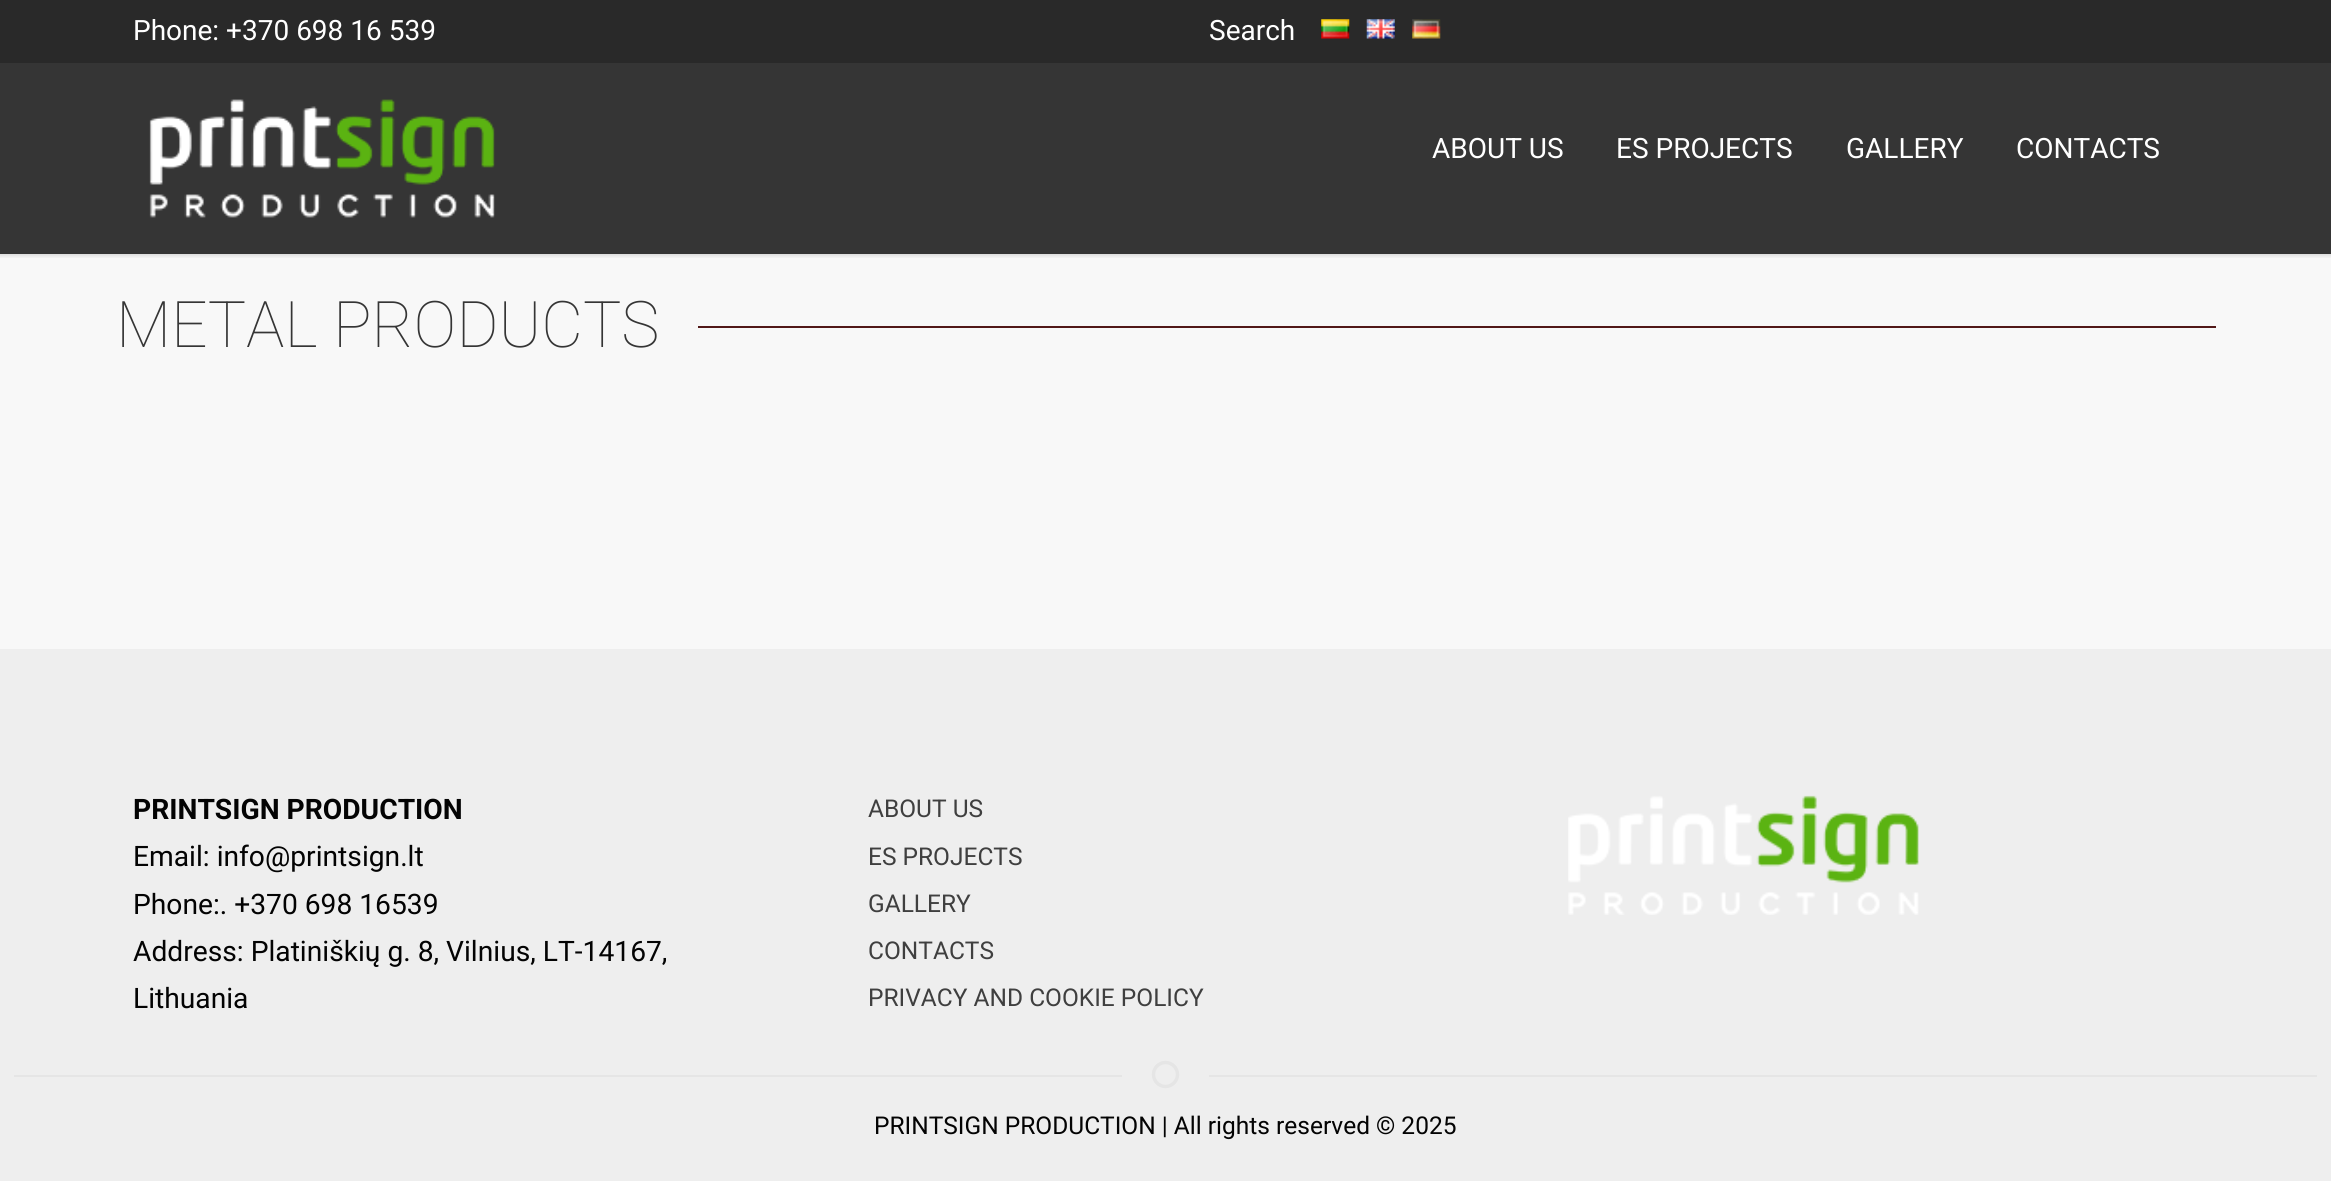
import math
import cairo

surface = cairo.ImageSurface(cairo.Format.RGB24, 2331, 1181)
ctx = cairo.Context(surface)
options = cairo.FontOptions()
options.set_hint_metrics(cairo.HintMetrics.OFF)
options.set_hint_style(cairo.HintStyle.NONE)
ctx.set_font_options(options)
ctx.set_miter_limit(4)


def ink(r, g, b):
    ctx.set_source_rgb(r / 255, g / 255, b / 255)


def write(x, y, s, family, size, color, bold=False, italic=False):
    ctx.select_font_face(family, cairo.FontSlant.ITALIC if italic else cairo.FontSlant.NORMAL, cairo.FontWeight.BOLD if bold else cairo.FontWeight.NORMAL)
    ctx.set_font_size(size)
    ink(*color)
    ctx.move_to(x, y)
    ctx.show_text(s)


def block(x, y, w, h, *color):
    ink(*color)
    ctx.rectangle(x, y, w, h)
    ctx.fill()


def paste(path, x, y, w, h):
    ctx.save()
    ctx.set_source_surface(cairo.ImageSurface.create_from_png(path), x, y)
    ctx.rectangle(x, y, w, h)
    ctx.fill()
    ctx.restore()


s1 = dict(family="Roboto", size=28, color=(255, 255, 255))
s2 = dict(family="Roboto Thin", size=64.25, color=(53, 53, 53))
s3 = dict(family="Roboto", size=28.2, color=(3, 3, 3), bold=True)
s4 = dict(family="Roboto", size=28.2, color=(3, 3, 3))
s5 = dict(family="Roboto", size=24.5, color=(63, 63, 63))
s6 = dict(family="Roboto", size=24.5, color=(3, 3, 3))

ink(248, 248, 248)
ctx.paint()
block(0, 0, 2331, 63, 41, 41, 41)
write(133, 40, "Phone: +370 698 16 539", **s1)
write(1209, 40, "Search", **s1)
paste("pic1.png", 1321, 19, 29, 20)
paste("pic2.png", 1366, 19, 29, 20)
paste("pic3.png", 1412, 19, 29, 20)
block(0, 63, 2331, 191, 53, 53, 53)
paste("pic4.png", 149, 99, 346, 119)
write(1432, 158, "ABOUT US", **s1)
write(1616, 158, "ES PROJECTS", **s1)
write(1846, 158, "GALLERY", **s1)
write(2016, 158, "CONTACTS", **s1)
paste("pic5.png", 0, 254, 2331, 4)
write(116, 347, "METAL PRODUCTS", **s2)
block(698, 326, 1518, 2, 81, 24, 24)
block(0, 649, 2331, 532, 238, 238, 238)
write(133, 819, "PRINTSIGN PRODUCTION", **s3)
write(133, 866, "Email: info@printsign.lt", **s4)
write(133, 914, "Phone:. +370 698 16539", **s4)
write(133, 961, "Address: Platiniškių g. 8, Vilnius, LT-14167,", **s4)
write(133, 1008, "Lithuania", **s4)
write(868, 817, "ABOUT US", **s5)
write(868, 865, "ES PROJECTS", **s5)
write(868, 912, "GALLERY", **s5)
write(868, 959, "CONTACTS", **s5)
write(868, 1006, "PRIVACY AND COOKIE POLICY", **s5)
paste("pic6.png", 1568, 795, 351, 120)
ctx.arc(1165.5, 1074.5, 12, 0, 2 * math.pi)
ink(229, 229, 229)
ctx.set_line_width(3.5)
ctx.stroke()
block(14, 1075, 1108, 2, 229, 229, 229)
block(1209, 1075, 1108, 2, 229, 229, 229)
write(874, 1134, "PRINTSIGN PRODUCTION | All rights reserved © 2025", **s6)
surface.write_to_png("screenshot.png")
